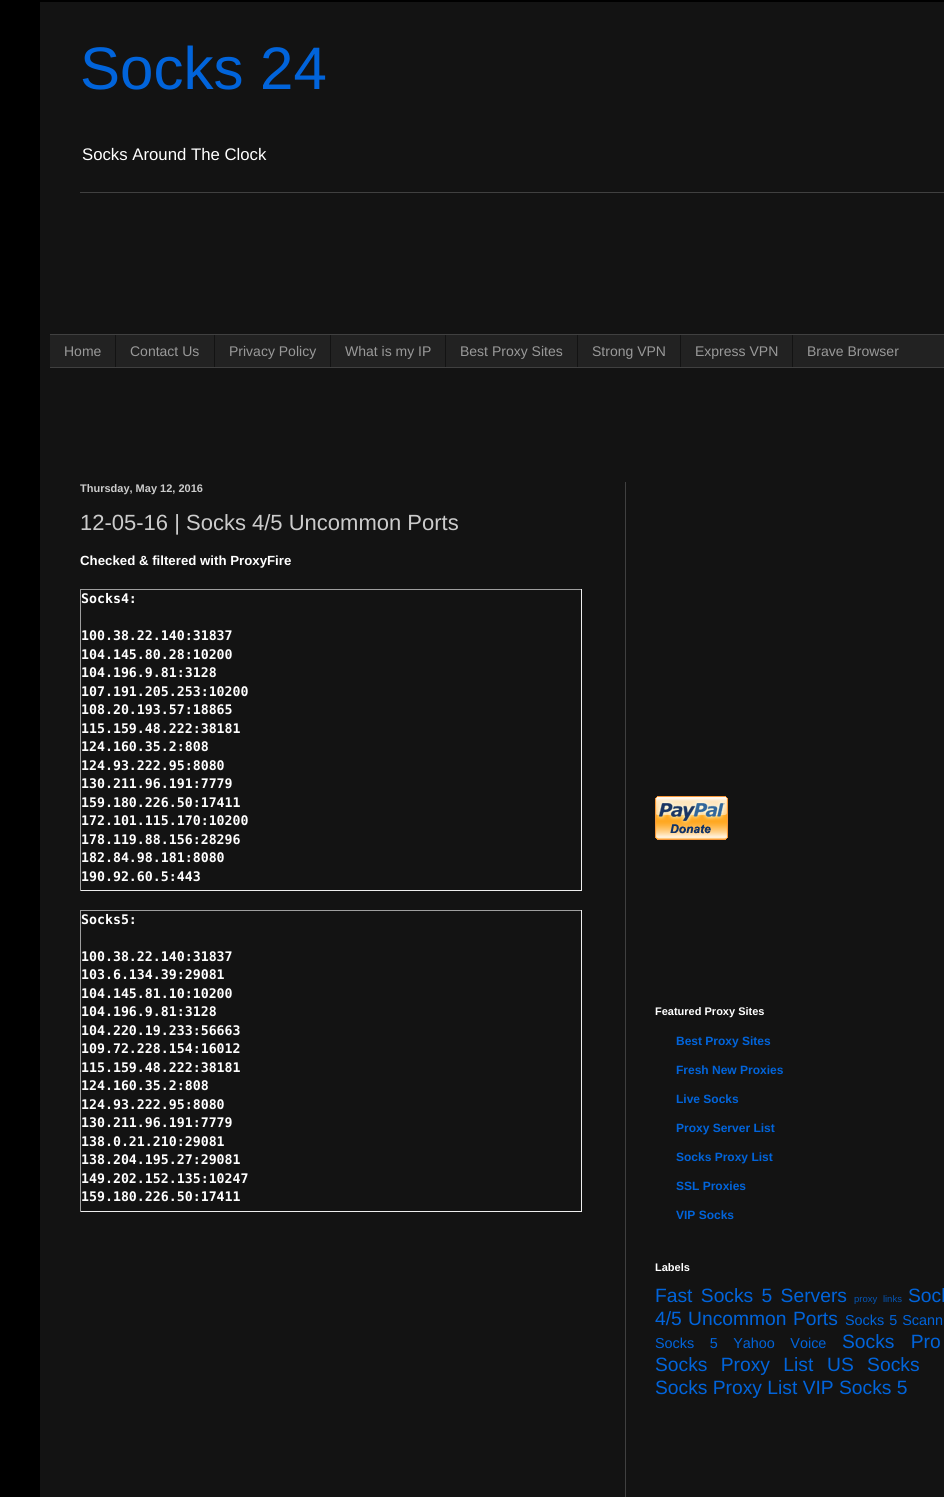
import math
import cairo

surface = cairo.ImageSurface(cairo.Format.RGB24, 944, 1497)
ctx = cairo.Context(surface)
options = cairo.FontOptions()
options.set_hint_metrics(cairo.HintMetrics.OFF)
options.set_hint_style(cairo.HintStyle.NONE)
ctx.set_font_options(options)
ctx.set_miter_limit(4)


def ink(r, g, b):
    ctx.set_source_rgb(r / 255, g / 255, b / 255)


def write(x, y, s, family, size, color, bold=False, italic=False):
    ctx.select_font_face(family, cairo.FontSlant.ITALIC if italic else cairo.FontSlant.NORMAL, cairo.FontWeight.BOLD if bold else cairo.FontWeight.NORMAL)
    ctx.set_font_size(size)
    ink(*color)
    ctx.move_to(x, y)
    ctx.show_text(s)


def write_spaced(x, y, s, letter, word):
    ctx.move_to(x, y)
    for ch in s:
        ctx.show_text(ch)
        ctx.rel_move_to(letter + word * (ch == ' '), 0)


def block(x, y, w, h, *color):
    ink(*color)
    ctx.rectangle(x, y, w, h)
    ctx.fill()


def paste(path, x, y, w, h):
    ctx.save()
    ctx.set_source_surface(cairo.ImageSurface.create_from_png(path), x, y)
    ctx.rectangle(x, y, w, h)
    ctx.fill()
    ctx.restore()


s1 = dict(family="Liberation Sans", size=60, color=(1, 100, 219))
s2 = dict(family="Liberation Sans", size=16.75, color=(255, 255, 255))
s3 = dict(family="Liberation Sans", size=14, color=(153, 153, 153))
s4 = dict(family="Liberation Sans", size=11, color=(204, 204, 204), bold=True)
s5 = dict(family="Liberation Sans", size=22, color=(204, 204, 204))
s6 = dict(family="Liberation Sans", size=13.25, color=(255, 255, 255), bold=True)
s7 = dict(family="DejaVu Sans Mono", size=13.25, color=(255, 255, 255), bold=True)
s8 = dict(family="Liberation Sans", size=11, color=(255, 255, 255), bold=True)
s9 = dict(family="Liberation Sans", size=12, color=(1, 100, 219), bold=True)
s10 = dict(family="Liberation Sans", size=19.25, color=(1, 100, 219))

ink(0, 0, 0)
ctx.paint()
block(40, 2, 904, 1495, 19, 19, 19)
write(80, 89, "Socks 24", **s1)
write(82, 160, "Socks Around The Clock", **s2)
block(80, 192, 864, 1, 64, 64, 64)
block(50, 335, 894, 32, 34, 34, 34)
block(50, 334, 894, 1, 64, 64, 64)
block(50, 367, 894, 1, 64, 64, 64)
write(64, 356, "Home", **s3)
block(115, 335, 1, 32, 19, 19, 19)
write(130, 356, "Contact Us", **s3)
block(214, 335, 1, 32, 19, 19, 19)
write(229, 356, "Privacy Policy", **s3)
block(330, 335, 1, 32, 19, 19, 19)
write(345, 356, "What is my IP", **s3)
block(445, 335, 1, 32, 19, 19, 19)
write(460, 356, "Best Proxy Sites", **s3)
block(577, 335, 1, 32, 19, 19, 19)
write(592, 356, "Strong VPN", **s3)
block(680, 335, 1, 32, 19, 19, 19)
write(695, 356, "Express VPN", **s3)
block(792, 335, 1, 32, 19, 19, 19)
write(807, 356, "Brave Browser", **s3)
block(625, 482, 1, 1015, 64, 64, 64)
write(80, 492, "Thursday, May 12, 2016", **s4)
write(80, 530, "12-05-16 | Socks 4/5 Uncommon Ports", **s5)
write(80, 565, "Checked & filtered with ProxyFire", **s6)
block(80, 589, 502, 1, 159, 159, 159)
block(581, 589, 1, 302, 238, 238, 238)
block(80, 890, 502, 1, 238, 238, 238)
block(80, 589, 1, 302, 159, 159, 159)
write(81, 603, "Socks4:", **s7)
write(81, 640, "100.38.22.140:31837", **s7)
write(81, 659, "104.145.80.28:10200", **s7)
write(81, 677, "104.196.9.81:3128", **s7)
write(81, 696, "107.191.205.253:10200", **s7)
write(81, 714, "108.20.193.57:18865", **s7)
write(81, 733, "115.159.48.222:38181", **s7)
write(81, 751, "124.160.35.2:808", **s7)
write(81, 770, "124.93.222.95:8080", **s7)
write(81, 788, "130.211.96.191:7779", **s7)
write(81, 807, "159.180.226.50:17411", **s7)
write(81, 825, "172.101.115.170:10200", **s7)
write(81, 844, "178.119.88.156:28296", **s7)
write(81, 862, "182.84.98.181:8080", **s7)
write(81, 881, "190.92.60.5:443", **s7)
block(80, 910, 502, 1, 159, 159, 159)
block(581, 910, 1, 302, 238, 238, 238)
block(80, 1211, 502, 1, 238, 238, 238)
block(80, 910, 1, 302, 159, 159, 159)
write(81, 924, "Socks5:", **s7)
write(81, 961, "100.38.22.140:31837", **s7)
write(81, 979, "103.6.134.39:29081", **s7)
write(81, 998, "104.145.81.10:10200", **s7)
write(81, 1016, "104.196.9.81:3128", **s7)
write(81, 1035, "104.220.19.233:56663", **s7)
write(81, 1053, "109.72.228.154:16012", **s7)
write(81, 1072, "115.159.48.222:38181", **s7)
write(81, 1090, "124.160.35.2:808", **s7)
write(81, 1109, "124.93.222.95:8080", **s7)
write(81, 1127, "130.211.96.191:7779", **s7)
write(81, 1146, "138.0.21.210:29081", **s7)
write(81, 1164, "138.204.195.27:29081", **s7)
write(81, 1183, "149.202.152.135:10247", **s7)
write(81, 1201, "159.180.226.50:17411", **s7)
paste("pic1.png", 655, 796, 73, 44)
write(655, 1015, "Featured Proxy Sites", **s8)
write(676, 1045, "Best Proxy Sites", **s9)
write(676, 1074, "Fresh New Proxies", **s9)
write(676, 1103, "Live Socks", **s9)
write(676, 1132, "Proxy Server List", **s9)
write(676, 1161, "Socks Proxy List", **s9)
write(676, 1190, "SSL Proxies", **s9)
write(676, 1219, "VIP Socks", **s9)
write(655, 1271, "Labels", **s8)
ctx.select_font_face("Liberation Sans")
ctx.set_font_size(19.25)
ink(1, 100, 219)
write_spaced(655, 1302, "Fast Socks 5 Servers", 0, 3)
ctx.set_font_size(9.5)
ink(4, 85, 181)
write_spaced(854, 1302, "proxy links", 0, 3)
write(908, 1302, "Sock", **s10)
write_spaced(655, 1325, "4/5 Uncommon Ports", 0, 1)
ctx.set_font_size(14.4)
write_spaced(845, 1325, "Socks 5 Scann", 0, 1)
write_spaced(655, 1348, "Socks 5 Yahoo Voice", 0, 11.5)
ctx.set_font_size(19.25)
write_spaced(842, 1348, "Socks Pro", 0, 11)
write_spaced(655, 1371, "Socks Proxy List", 0, 8)
write_spaced(827, 1371, "US Socks", 0, 8)
write(655, 1394, "Socks Proxy List VIP Socks 5", **s10)
surface.write_to_png("screenshot.png")
